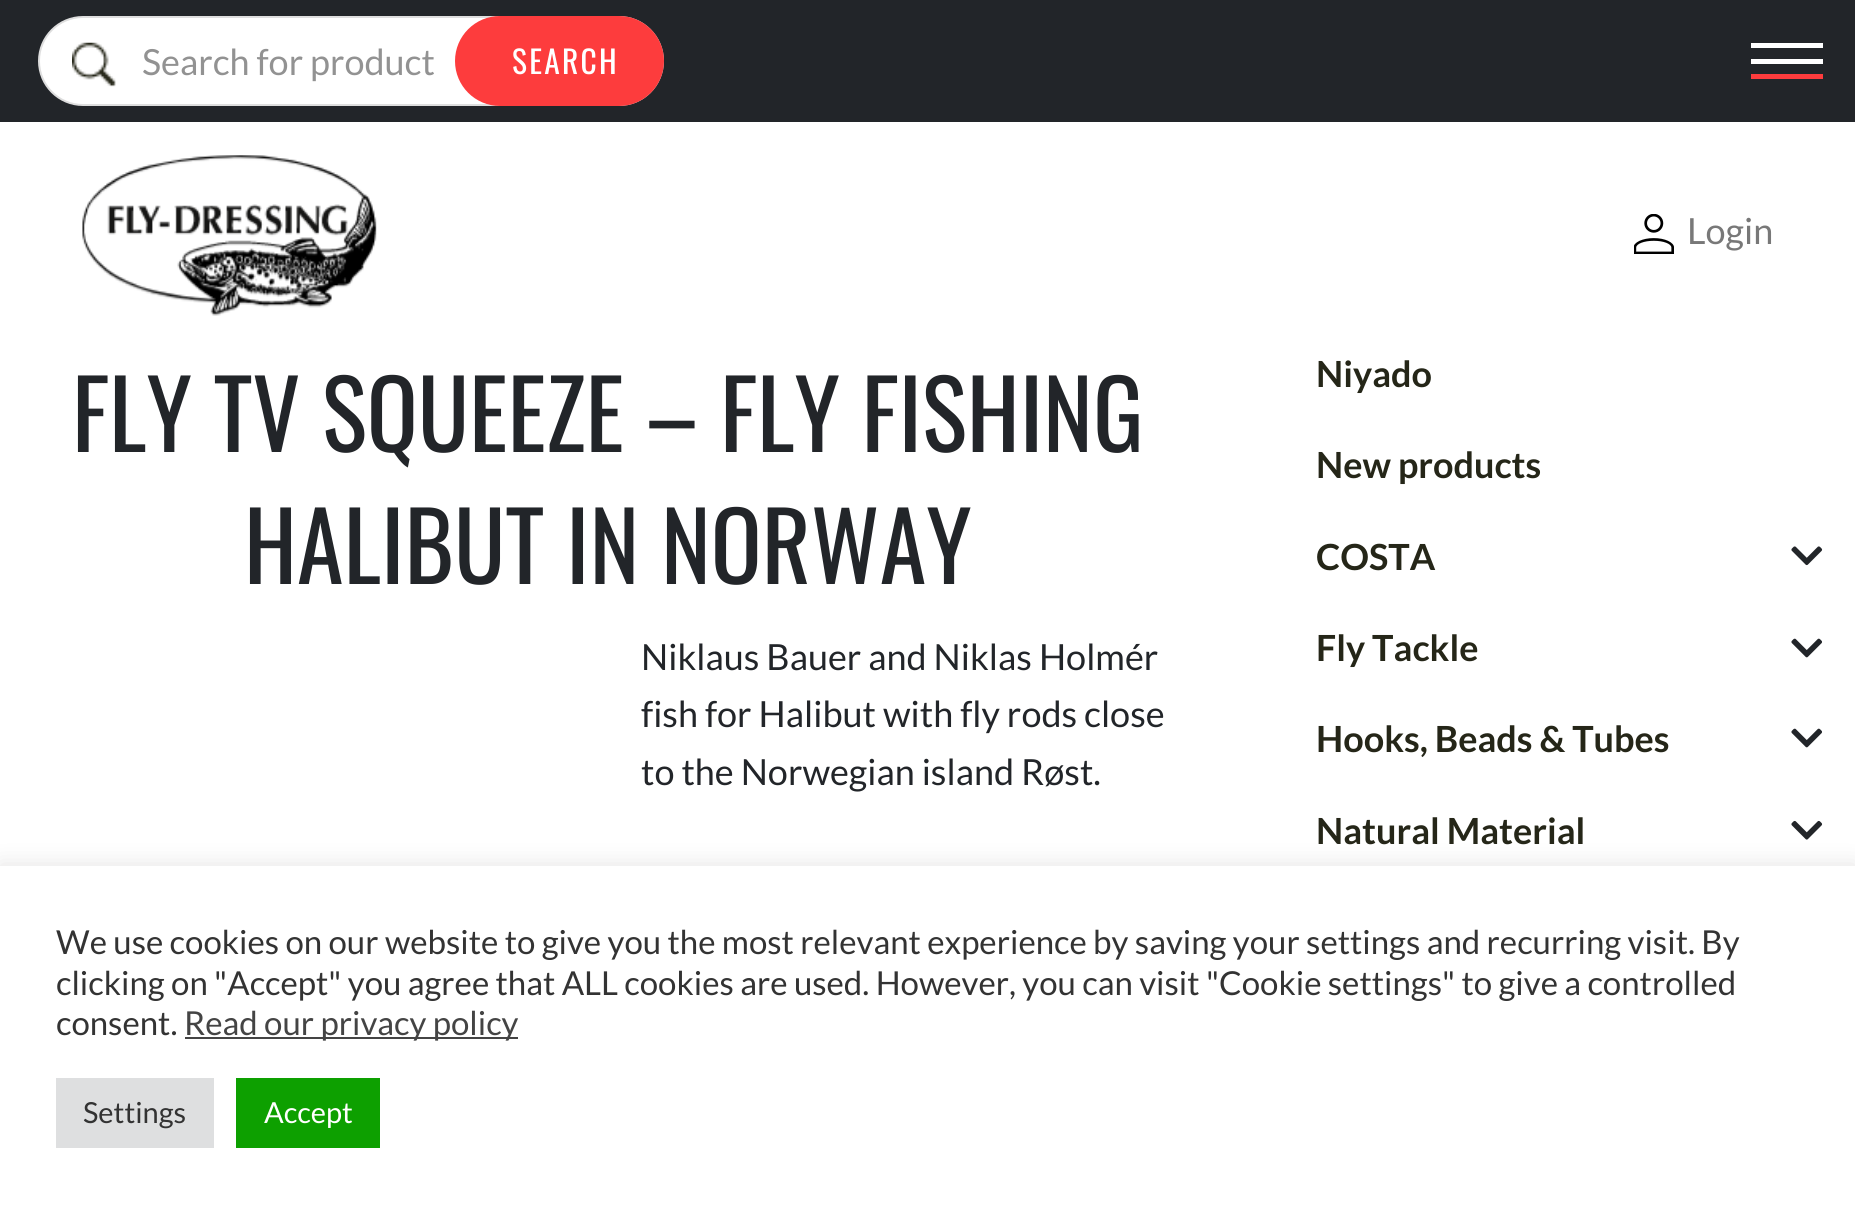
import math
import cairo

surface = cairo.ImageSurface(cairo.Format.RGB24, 1855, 1215)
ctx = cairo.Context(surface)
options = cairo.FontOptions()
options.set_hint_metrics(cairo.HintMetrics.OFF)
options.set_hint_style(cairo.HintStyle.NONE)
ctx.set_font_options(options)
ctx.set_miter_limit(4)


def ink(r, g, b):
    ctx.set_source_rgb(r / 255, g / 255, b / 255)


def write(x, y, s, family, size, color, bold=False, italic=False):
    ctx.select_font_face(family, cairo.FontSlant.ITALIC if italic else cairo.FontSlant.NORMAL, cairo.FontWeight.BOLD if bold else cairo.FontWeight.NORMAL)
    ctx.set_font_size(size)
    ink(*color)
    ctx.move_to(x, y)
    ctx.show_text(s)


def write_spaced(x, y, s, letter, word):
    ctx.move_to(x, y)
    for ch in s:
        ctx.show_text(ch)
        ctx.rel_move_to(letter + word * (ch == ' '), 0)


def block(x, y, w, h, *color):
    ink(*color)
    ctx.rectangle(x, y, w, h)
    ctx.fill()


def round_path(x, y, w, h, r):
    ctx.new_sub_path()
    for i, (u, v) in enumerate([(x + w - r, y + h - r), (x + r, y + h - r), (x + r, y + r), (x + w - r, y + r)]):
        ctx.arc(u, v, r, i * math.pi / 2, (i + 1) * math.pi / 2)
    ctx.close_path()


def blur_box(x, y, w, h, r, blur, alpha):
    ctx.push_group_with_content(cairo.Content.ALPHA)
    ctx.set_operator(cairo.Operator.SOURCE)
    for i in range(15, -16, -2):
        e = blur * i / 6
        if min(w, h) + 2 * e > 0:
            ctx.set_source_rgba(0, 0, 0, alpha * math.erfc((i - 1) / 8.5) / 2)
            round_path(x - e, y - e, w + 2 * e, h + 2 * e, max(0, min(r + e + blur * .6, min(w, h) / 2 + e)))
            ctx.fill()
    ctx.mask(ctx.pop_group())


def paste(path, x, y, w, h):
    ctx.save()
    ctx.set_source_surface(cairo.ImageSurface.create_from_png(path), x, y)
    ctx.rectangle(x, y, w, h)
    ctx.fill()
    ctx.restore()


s1 = dict(family="Lato", size=36, color=(146, 146, 146))
s2 = dict(family="Lato", size=36, color=(120, 120, 120))
s3 = dict(family="Oswald", size=94.5, color=(34, 37, 41))
s4 = dict(family="Lato", size=36, color=(34, 37, 41))
s5 = dict(family="Lato", size=36, color=(37, 38, 24), bold=True)
s6 = dict(family="Lato", size=33, color=(51, 51, 51))
s7 = dict(family="Lato", size=33, color=(68, 68, 68))
s8 = dict(family="Lato", size=29, color=(51, 51, 51))
s9 = dict(family="Lato", size=29, color=(255, 255, 255))

ink(255, 255, 255)
ctx.paint()
block(0, 0, 1855, 122, 34, 37, 41)
block(1751, 74, 72, 5, 253, 60, 61)
block(1751, 59, 72, 5, 255, 255, 255)
block(1751, 43, 72, 5, 255, 255, 255)
round_path(39, 17, 624, 88, 44)
ctx.fill_preserve()
ink(222, 222, 222)
ctx.stroke()
paste("pic1.png", 72, 42, 44, 45)
write(142, 75, "Search for product", **s1)
ink(253, 60, 61)
round_path(455, 16, 209, 90, 45)
ctx.fill()
ctx.select_font_face("Oswald")
ctx.set_font_size(31.5)
ink(255, 255, 255)
write_spaced(512, 74, "SEARCH", 2.25, 0)
paste("pic2.png", 82, 155, 295, 161)
paste("pic3.png", 1634, 214, 40, 40)
write(1687, 244, "Login", **s2)
write(72, 452, "FLY TV SQUEEZE – FLY FISHING", **s3)
write(244, 584, "HALIBUT IN NORWAY", **s3)
write(641, 670, "Niklaus Bauer and Niklas Holmér", **s4)
write(641, 727, "fish for Halibut with fly rods close", **s4)
write(641, 785, "to the Norwegian island Røst.", **s4)
write(1316, 387, "Niyado", **s5)
write(1316, 478, "New products", **s5)
write(1316, 570, "COSTA", **s5)
paste("pic4.png", 1791, 546, 32, 20)
write(1316, 661, "Fly Tackle", **s5)
paste("pic5.png", 1791, 638, 31, 20)
write(1316, 752, "Hooks, Beads & Tubes", **s5)
paste("pic5.png", 1791, 728, 31, 20)
write(1316, 844, "Natural Material", **s5)
paste("pic6.png", 1791, 820, 32, 20)
ink(172, 171, 171)
blur_box(0, 864, 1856, 349, 0, 11, 0.3)
block(0, 866, 1855, 349, 255, 255, 255)
write(56, 954, "We use cookies on our website to give you the most relevant experience by saving your settings and recurring visit. By", **s6)
write(56, 995, "clicking on \"Accept\" you agree that ALL cookies are used. However, you can visit \"Cookie settings\" to give a controlled", **s6)
write(56, 1035, "consent.", **s6)
block(185, 1037, 333, 2, 68, 68, 68)
write(184, 1035, "Read our privacy policy", **s7)
block(56, 1078, 158, 70, 222, 223, 224)
write(83, 1123, "Settings", **s8)
block(236, 1078, 144, 70, 13, 160, 0)
write(264, 1123, "Accept", **s9)
surface.write_to_png("screenshot.png")
